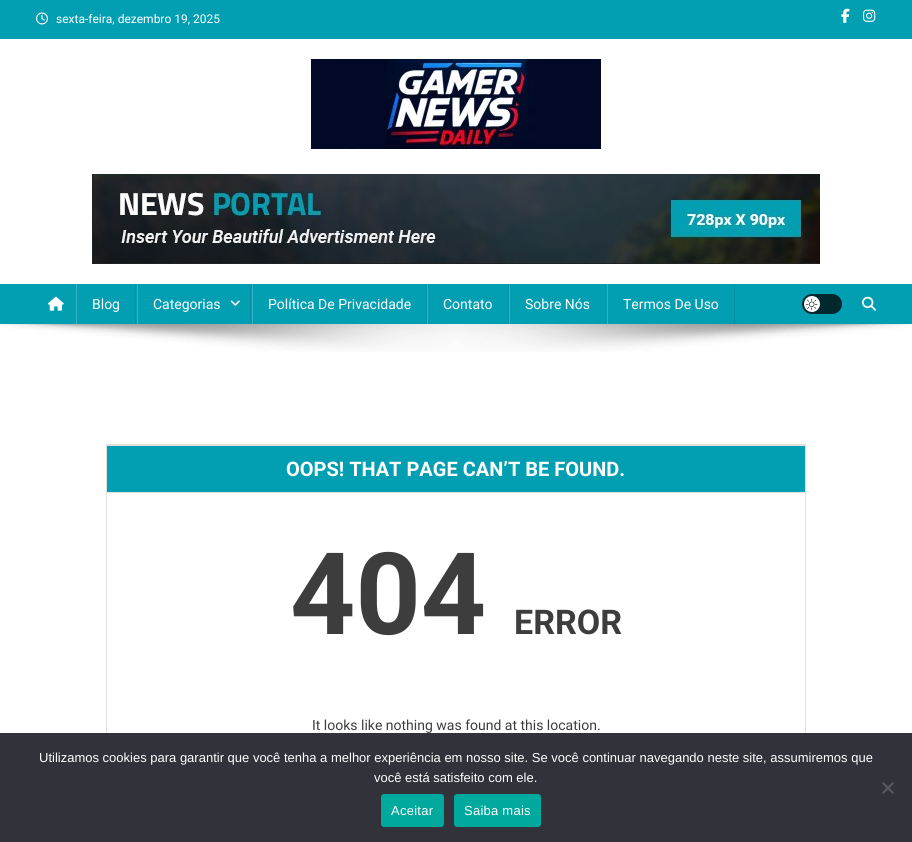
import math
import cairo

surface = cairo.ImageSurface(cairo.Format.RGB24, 912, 842)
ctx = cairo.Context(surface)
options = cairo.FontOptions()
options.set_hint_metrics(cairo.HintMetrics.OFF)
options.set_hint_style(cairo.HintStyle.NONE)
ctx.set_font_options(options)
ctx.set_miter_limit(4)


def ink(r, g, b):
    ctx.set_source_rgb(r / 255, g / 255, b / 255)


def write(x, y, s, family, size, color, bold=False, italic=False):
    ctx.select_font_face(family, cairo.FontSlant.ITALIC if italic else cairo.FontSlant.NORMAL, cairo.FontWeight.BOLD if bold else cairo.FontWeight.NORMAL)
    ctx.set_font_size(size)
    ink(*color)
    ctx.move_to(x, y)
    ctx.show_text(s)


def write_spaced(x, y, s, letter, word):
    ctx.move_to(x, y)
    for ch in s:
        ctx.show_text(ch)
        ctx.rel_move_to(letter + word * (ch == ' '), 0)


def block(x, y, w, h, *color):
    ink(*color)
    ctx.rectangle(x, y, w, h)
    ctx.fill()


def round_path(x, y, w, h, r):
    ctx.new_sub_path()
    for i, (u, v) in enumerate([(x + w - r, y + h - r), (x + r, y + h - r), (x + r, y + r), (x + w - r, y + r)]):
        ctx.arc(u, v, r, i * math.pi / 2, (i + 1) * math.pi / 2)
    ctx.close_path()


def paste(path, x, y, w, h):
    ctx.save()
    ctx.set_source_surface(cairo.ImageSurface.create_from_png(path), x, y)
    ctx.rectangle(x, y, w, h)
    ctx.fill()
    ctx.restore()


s1 = dict(family="Roboto", size=12, color=(255, 255, 255))
s2 = dict(family="Roboto", size=14, color=(255, 255, 255))
s3 = dict(family="Roboto", size=20, color=(255, 255, 255), bold=True)
s4 = dict(family="Roboto", size=114, color=(61, 61, 61), bold=True)
s5 = dict(family="Roboto", size=34, color=(61, 61, 61), bold=True)
s6 = dict(family="Roboto", size=14, color=(61, 61, 61))
s7 = dict(family="Liberation Sans", size=13, color=(255, 255, 255))

ink(255, 255, 255)
ctx.paint()
block(0, 0, 912, 39, 2, 159, 178)
paste("pic1.png", 36, 12, 12, 13)
write(56, 23, "sexta-feira, dezembro 19, 2025", **s1)
paste("pic2.png", 841, 8, 9, 15)
paste("pic3.png", 863, 9, 13, 13)
paste("pic4.png", 311, 59, 290, 90)
paste("pic5.png", 92, 174, 728, 90)
block(0, 284, 912, 40, 2, 159, 178)
paste("pic6.png", 48, 296, 16, 15)
block(135, 284, 1, 40, 2, 146, 164)
block(76, 284, 1, 40, 53, 178, 193)
write(92, 309, "Blog", **s2)
block(250, 284, 1, 40, 2, 146, 164)
block(137, 284, 1, 40, 53, 178, 193)
write(153, 309, "Categorias", **s2)
paste("pic7.png", 230, 300, 10, 6)
block(426, 284, 1, 40, 2, 146, 164)
block(252, 284, 1, 40, 53, 178, 193)
write(268, 309, "Política De Privacidade", **s2)
block(508, 284, 1, 40, 2, 146, 164)
block(427, 284, 1, 40, 53, 178, 193)
write(443, 309, "Contato", **s2)
block(605, 284, 1, 40, 2, 146, 164)
block(509, 284, 1, 40, 53, 178, 193)
write(525, 309, "Sobre Nós", **s2)
block(734, 284, 1, 40, 2, 146, 164)
block(607, 284, 1, 40, 53, 178, 193)
write(623, 309, "Termos De Uso", **s2)
ink(1, 40, 45)
round_path(802, 294, 40, 20, 10)
ctx.fill()
ink(255, 255, 255)
ctx.arc(812, 304, 8, 0, 2 * math.pi)
ctx.fill()
paste("pic8.png", 806, 298, 12, 12)
paste("pic9.png", 862, 296, 14, 15)
paste("pic10.png", 0, 324, 912, 28)
ctx.rectangle(106.5, 444.5, 699, 314)
ink(225, 225, 225)
ctx.set_line_width(1)
ctx.stroke()
block(107, 446, 698, 46, 2, 159, 178)
block(107, 445, 698, 1, 225, 225, 225)
block(107, 492, 698, 1, 225, 225, 225)
write(286, 476, "OOPS! THAT PAGE CAN’T BE FOUND.", **s3)
write(290, 634, "404", **s4)
write(514, 634, "ERROR", **s5)
write(312, 730, "It looks like nothing was found at this location.", **s6)
block(0, 733, 912, 109, 50, 50, 58)
write(39, 762, "Utilizamos cookies para garantir que você tenha a melhor experiência em nosso site. Se você continuar navegando neste site, assumiremos que", **s7)
write(374, 782, "você está satisfeito com ele.", **s7)
ink(89, 89, 93)
ctx.new_path()
ctx.move_to(892.5, 782)
ctx.line_to(894, 783.5)
ctx.line_to(883.5, 794)
ctx.line_to(882, 792.5)
ctx.close_path()
ctx.fill()
ctx.new_path()
ctx.move_to(882, 783.5)
ctx.line_to(883.5, 782)
ctx.line_to(894, 792.5)
ctx.line_to(892.5, 794)
ctx.close_path()
ctx.fill()
ink(0, 169, 157)
round_path(381, 794, 63, 33, 3)
ctx.fill()
ink(255, 255, 255)
write_spaced(391, 815, "Aceitar", 0.25, 0)
ink(0, 169, 157)
round_path(454, 794, 87, 33, 3)
ctx.fill()
ink(255, 255, 255)
write_spaced(464, 815, "Saiba mais", 0.25, 0)
surface.write_to_png("screenshot.png")
